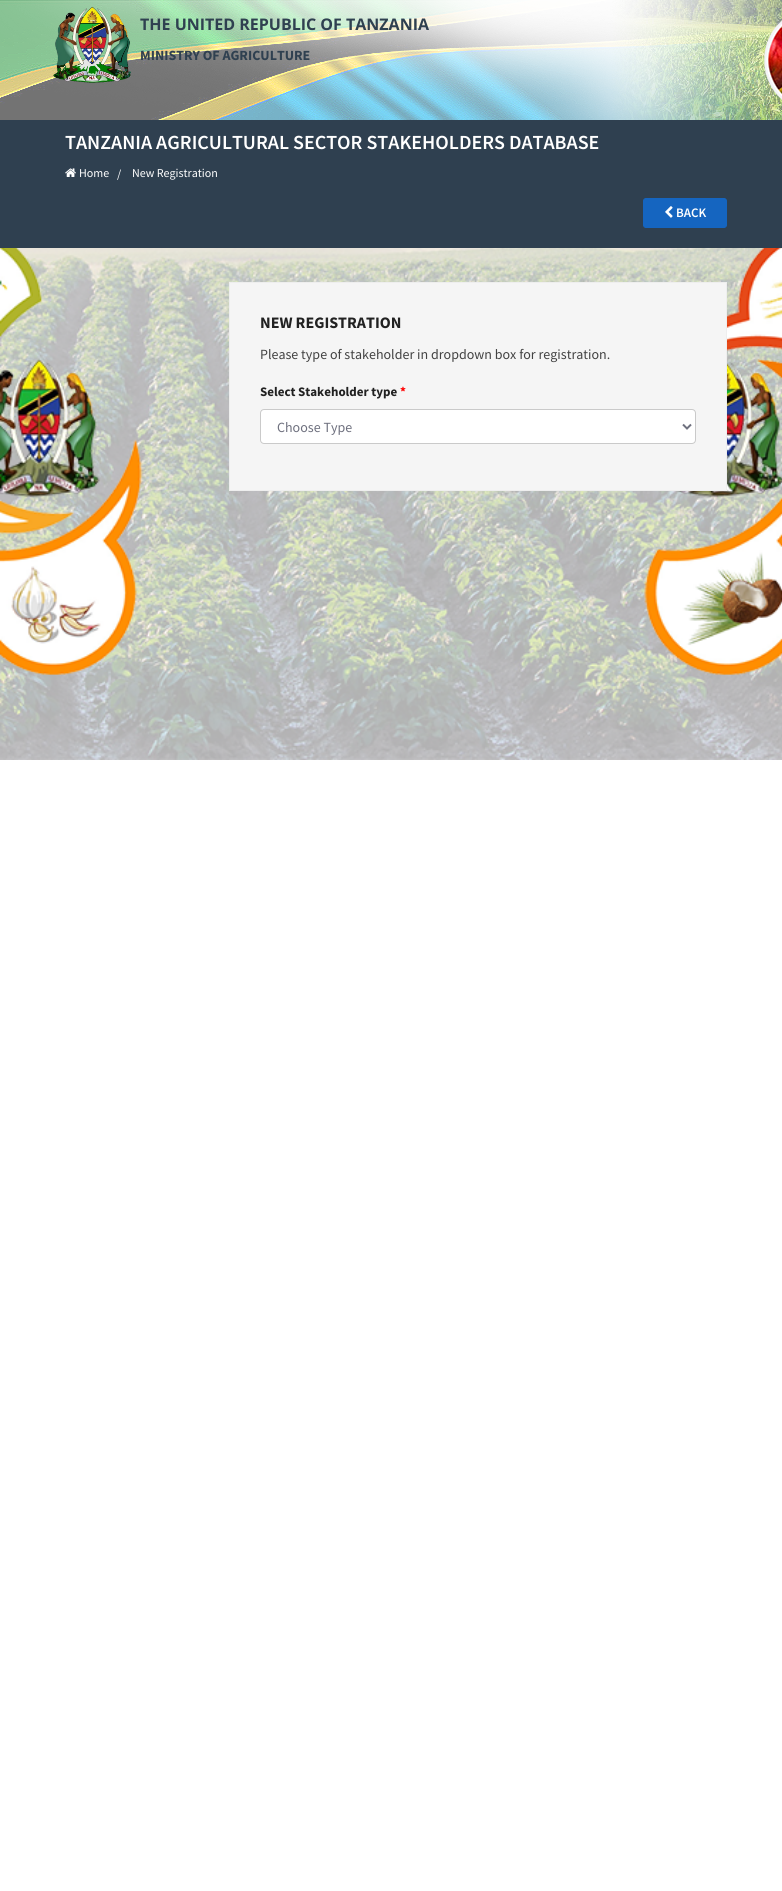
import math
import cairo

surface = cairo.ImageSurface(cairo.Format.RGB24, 782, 1891)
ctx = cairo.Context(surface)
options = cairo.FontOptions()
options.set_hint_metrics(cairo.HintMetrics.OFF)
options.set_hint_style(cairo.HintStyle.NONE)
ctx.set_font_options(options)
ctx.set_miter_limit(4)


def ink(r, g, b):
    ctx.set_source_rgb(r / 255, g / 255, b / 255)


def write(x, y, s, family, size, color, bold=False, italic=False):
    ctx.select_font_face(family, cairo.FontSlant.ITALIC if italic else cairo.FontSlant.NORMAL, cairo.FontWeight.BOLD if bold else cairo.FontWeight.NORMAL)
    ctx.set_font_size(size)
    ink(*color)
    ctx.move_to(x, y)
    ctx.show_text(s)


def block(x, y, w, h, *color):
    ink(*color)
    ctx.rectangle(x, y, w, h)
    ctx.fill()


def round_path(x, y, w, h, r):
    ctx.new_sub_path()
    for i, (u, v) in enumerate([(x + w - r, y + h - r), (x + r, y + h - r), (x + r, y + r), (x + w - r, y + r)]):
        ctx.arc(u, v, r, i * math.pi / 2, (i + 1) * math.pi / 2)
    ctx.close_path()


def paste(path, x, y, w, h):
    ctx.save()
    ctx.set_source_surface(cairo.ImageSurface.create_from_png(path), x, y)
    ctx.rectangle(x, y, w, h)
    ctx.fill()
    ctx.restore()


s1 = dict(family="Open Sans", size=16, color=(47, 64, 80), bold=True)
s2 = dict(family="Source Sans Pro", size=14, color=(47, 64, 80), bold=True)
s3 = dict(family="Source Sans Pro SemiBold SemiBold", size=20, color=(255, 255, 255))
s4 = dict(family="Source Sans Pro", size=12, color=(255, 255, 255))
s5 = dict(family="Source Sans Pro SemiBold SemiBold", size=13, color=(255, 255, 255))
s6 = dict(family="Source Sans Pro", size=16, color=(33, 33, 33), bold=True)
s7 = dict(family="Source Sans Pro", size=14, color=(66, 66, 66))
s8 = dict(family="Source Sans Pro", size=13, color=(33, 33, 33), bold=True)
s9 = dict(family="Source Sans Pro", size=13, color=(255, 0, 0), bold=True)
s10 = dict(family="Source Sans Pro", size=14, color=(110, 112, 126))

ink(255, 255, 255)
ctx.paint()
paste("pic1.png", 0, 0, 782, 120)
paste("pic2.png", 53, 6, 78, 77)
write(140, 30, "THE UNITED REPUBLIC OF TANZANIA", **s1)
write(140, 60, "MINISTRY OF AGRICULTURE", **s2)
paste("pic3.png", 0, 248, 782, 512)
block(0, 120, 782, 128, 47, 64, 80)
write(65, 149, "TANZANIA AGRICULTURAL SECTOR STAKEHOLDERS DATABASE", **s3)
paste("pic4.png", 65, 168, 11, 9)
write(79, 177, "Home", **s4)
write(117, 178, "/", **s4)
write(132, 177, "New Registration", **s4)
ink(21, 101, 192)
round_path(643.5, 198.5, 83, 29, 2.5)
ctx.fill_preserve()
ctx.set_line_width(1)
ctx.stroke()
paste("pic5.png", 665, 206, 8, 12)
write(676, 217, "BACK", **s5)
ink(245, 245, 245)
ctx.rectangle(229.5, 282.5, 497, 208)
ctx.fill_preserve()
ink(238, 238, 238)
ctx.stroke()
write(260, 328, "NEW REGISTRATION", **s6)
write(260, 359, "Please type of stakeholder in dropdown box for registration.", **s7)
write(260, 396, "Select Stakeholder type", **s8)
write(400, 396, "*", **s9)
ink(255, 255, 255)
round_path(260.5, 409.5, 435, 34, 3.5)
ctx.fill_preserve()
ink(202, 202, 202)
ctx.stroke()
ctx.new_path()
ctx.move_to(683, 424.5)
ctx.line_to(687, 428.5)
ctx.line_to(691, 424.5)
ink(110, 112, 126)
ctx.set_line_width(2)
ctx.stroke()
write(277, 432, "Choose Type", **s10)
surface.write_to_png("screenshot.png")
